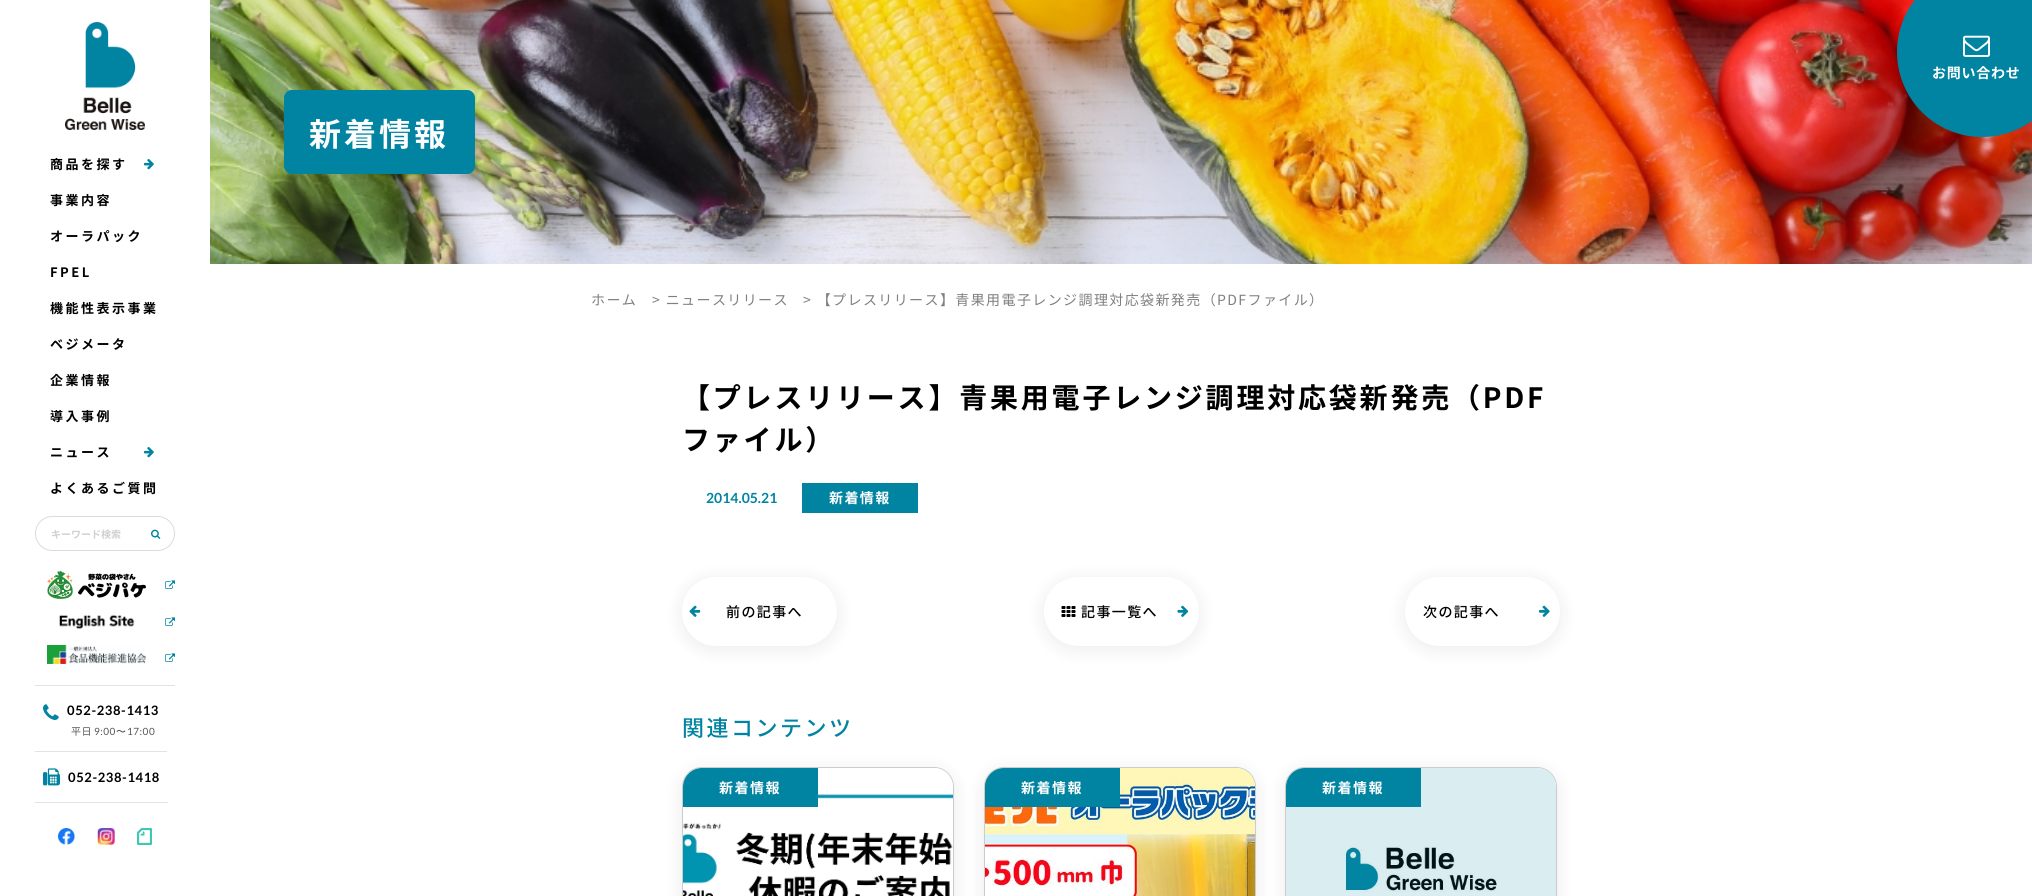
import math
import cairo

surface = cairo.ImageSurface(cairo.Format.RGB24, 2032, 896)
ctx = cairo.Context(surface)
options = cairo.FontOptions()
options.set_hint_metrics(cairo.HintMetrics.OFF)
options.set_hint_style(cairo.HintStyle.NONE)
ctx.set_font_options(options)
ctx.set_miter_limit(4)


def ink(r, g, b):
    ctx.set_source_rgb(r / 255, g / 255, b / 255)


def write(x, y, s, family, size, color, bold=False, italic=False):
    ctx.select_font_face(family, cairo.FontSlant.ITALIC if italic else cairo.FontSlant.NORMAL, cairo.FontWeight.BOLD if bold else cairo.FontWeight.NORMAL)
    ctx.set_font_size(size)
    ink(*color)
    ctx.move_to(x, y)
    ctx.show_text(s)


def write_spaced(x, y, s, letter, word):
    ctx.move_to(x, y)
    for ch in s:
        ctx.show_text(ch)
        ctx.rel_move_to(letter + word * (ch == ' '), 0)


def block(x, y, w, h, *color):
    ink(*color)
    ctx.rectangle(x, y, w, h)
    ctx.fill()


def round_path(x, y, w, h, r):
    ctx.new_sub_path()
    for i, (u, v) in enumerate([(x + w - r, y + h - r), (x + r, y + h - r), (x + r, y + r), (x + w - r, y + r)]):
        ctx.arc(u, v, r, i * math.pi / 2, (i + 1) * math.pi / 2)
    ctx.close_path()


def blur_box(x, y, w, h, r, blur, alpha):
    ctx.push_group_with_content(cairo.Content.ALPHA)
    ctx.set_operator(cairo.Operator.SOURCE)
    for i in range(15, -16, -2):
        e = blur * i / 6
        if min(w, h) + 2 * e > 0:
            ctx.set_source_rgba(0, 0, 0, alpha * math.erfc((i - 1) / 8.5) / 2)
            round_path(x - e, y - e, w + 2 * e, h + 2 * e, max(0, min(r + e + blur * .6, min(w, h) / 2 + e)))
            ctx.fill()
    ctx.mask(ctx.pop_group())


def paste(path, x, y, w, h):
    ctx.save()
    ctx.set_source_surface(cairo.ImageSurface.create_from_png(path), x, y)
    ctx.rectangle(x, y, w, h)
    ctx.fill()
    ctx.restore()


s1 = dict(family="Noto Sans JP", size=10, color=(208, 208, 208), bold=True)
s2 = dict(family="Lato", size=14, color=(0, 132, 161), bold=True)

ink(255, 255, 255)
ctx.paint()
paste("pic14.png", 210, 0, 1822, 264)
ink(0, 132, 161)
ctx.arc(1982, 52, 85, 0, 2 * math.pi)
ctx.fill()
paste("pic1.png", 1963, 35, 27, 22)
ctx.select_font_face("Noto Sans JP", cairo.FontSlant.NORMAL, cairo.FontWeight.BOLD)
ctx.set_font_size(14)
ink(255, 255, 255)
write_spaced(1932, 78, "お問い合わせ", 0.75, 0)
paste("pic2.png", 65, 22, 80, 108)
ctx.set_font_size(13)
ink(0, 0, 0)
write_spaced(50, 169, "商品を探す", 2.5, 0)
paste("pic3.png", 144, 159, 10, 11)
write_spaced(50, 205, "事業内容", 2.5, 0)
write_spaced(50, 241, "オーラパック", 2.5, 0)
write_spaced(50, 277, "FPEL", 2.5, 0)
write_spaced(50, 313, "機能性表示事業", 2.5, 0)
write_spaced(50, 349, "ベジメータ", 2.5, 0)
write_spaced(50, 385, "企業情報", 2.5, 0)
write_spaced(50, 421, "導入事例", 2.5, 0)
write_spaced(50, 457, "ニュース", 2.5, 0)
paste("pic3.png", 144, 447, 10, 11)
write_spaced(50, 493, "よくあるご質問", 2.5, 0)
round_path(35.5, 516.5, 139, 34, 17)
ink(219, 219, 219)
ctx.set_line_width(1)
ctx.stroke()
write(51, 538, "キーワード検索", **s1)
paste("pic4.png", 151, 529, 10, 10)
block(35, 685, 140, 1, 227, 227, 227)
paste("pic5.png", 47, 571, 99, 28)
paste("pic6.png", 165, 580, 10, 9)
paste("pic7.png", 59, 614, 76, 16)
paste("pic6.png", 165, 617, 10, 9)
paste("pic8.png", 47, 645, 99, 19)
paste("pic6.png", 165, 653, 10, 9)
block(35, 751, 132, 1, 227, 227, 227)
paste("pic9.png", 43, 704, 16, 16)
ctx.select_font_face("Lato", cairo.FontSlant.NORMAL, cairo.FontWeight.BOLD)
ctx.set_font_size(13)
ink(0, 0, 0)
write_spaced(67, 715, "052-238-1413", 0.6, 0)
ctx.select_font_face("Noto Sans JP")
ctx.set_font_size(10)
ink(85, 85, 85)
write_spaced(71, 735, "平日", 0.5, 0)
ctx.select_font_face("Lato")
write_spaced(94, 735, "9:00", 0.5, 0)
ctx.select_font_face("WenQuanYi Zen Hei Medium")
write_spaced(116, 735, "〜", 0.5, 0)
ctx.select_font_face("Lato")
write_spaced(127, 735, "17:00", 0.5, 0)
block(35, 802, 133, 1, 227, 227, 227)
paste("pic10.png", 43, 768, 17, 18)
ctx.select_font_face("Lato", cairo.FontSlant.NORMAL, cairo.FontWeight.BOLD)
ctx.set_font_size(13)
ink(0, 0, 0)
write_spaced(68, 782, "052-238-1418", 0.6, 0)
paste("pic11.png", 58, 828, 17, 17)
paste("pic12.png", 97, 828, 18, 17)
paste("pic13.png", 137, 828, 15, 17)
ink(0, 132, 161)
round_path(284, 90, 191, 84, 8)
ctx.fill()
ctx.select_font_face("Noto Sans JP", cairo.FontSlant.NORMAL, cairo.FontWeight.BOLD)
ctx.set_font_size(32)
ink(255, 255, 255)
write_spaced(309, 146, "新着情報", 3, 0)
ctx.select_font_face("Noto Sans JP")
ctx.set_font_size(14)
ink(128, 128, 128)
write_spaced(591, 305, "ホーム", 1.4, 0)
write_spaced(652, 305, "> ニュースリリース", 1.4, 0)
write_spaced(803, 305, "> 【プレスリリース】青果用電子レンジ調理対応袋新発売（PDFファイル）", 1.4, 0)
ctx.select_font_face("Noto Sans JP", cairo.FontSlant.NORMAL, cairo.FontWeight.BOLD)
ctx.set_font_size(28)
ink(0, 0, 0)
write_spaced(682, 408, "【プレスリリース】青果用電子レンジ調理対応袋新発売（PDF", 2.8, 0)
write_spaced(682, 450, "ファイル）", 2.8, 0)
write(706, 503, "2014.05.21", **s2)
block(802, 483, 116, 30, 0, 132, 161)
ctx.select_font_face("Noto Sans JP", cairo.FontSlant.NORMAL, cairo.FontWeight.BOLD)
ink(255, 255, 255)
write_spaced(829, 503, "新着情報", 1.4, 0)
ink(0, 0, 0)
blur_box(682, 580, 155, 69, 34.5, 10, 0.08)
ink(255, 255, 255)
round_path(682, 577, 155, 69, 34.5)
ctx.fill()
paste("pic15.png", 689, 605, 12, 12)
ctx.select_font_face("Noto Sans JP Medium")
ink(0, 0, 0)
write_spaced(726, 617, "前の記事へ", 1.4, 0)
ink(0, 0, 0)
blur_box(1044, 580, 155, 69, 34.5, 10, 0.08)
ink(255, 255, 255)
round_path(1044, 577, 155, 69, 34.5)
ctx.fill()
paste("pic16.png", 1061, 606, 15, 11)
ink(0, 0, 0)
write_spaced(1081, 617, "記事一覧へ", 1.4, 0)
paste("pic17.png", 1177, 605, 12, 12)
ink(0, 0, 0)
blur_box(1405, 580, 155, 69, 34.5, 10, 0.08)
ink(255, 255, 255)
round_path(1405, 577, 155, 69, 34.5)
ctx.fill()
ink(0, 0, 0)
write_spaced(1423, 617, "次の記事へ", 1.4, 0)
paste("pic18.png", 1539, 605, 11, 12)
ctx.set_font_size(22)
ink(0, 132, 161)
write_spaced(682, 736, "関連コンテンツ", 2.5, 0)
ink(0, 0, 0)
blur_box(682, 770, 272, 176, 20, 10, 0.08)
round_path(682.5, 767.5, 271, 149, 19.5)
ink(204, 204, 204)
ctx.stroke()
paste("pic19.png", 683, 768, 270, 128)
ink(0, 132, 161)
ctx.new_path()
ctx.move_to(702, 768)
ctx.line_to(818, 768)
ctx.line_to(818, 807)
ctx.line_to(683, 807)
ctx.line_to(683, 787)
ctx.curve_to(683, 776.5, 691.5, 768, 702, 768)
ctx.close_path()
ctx.fill()
ctx.select_font_face("Noto Sans JP", cairo.FontSlant.NORMAL, cairo.FontWeight.BOLD)
ctx.set_font_size(14)
ink(255, 255, 255)
write_spaced(719, 793, "新着情報", 1.5, 0)
ink(0, 0, 0)
blur_box(984, 770, 272, 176, 20, 10, 0.08)
round_path(984.5, 767.5, 271, 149, 19.5)
ink(204, 204, 204)
ctx.stroke()
paste("pic20.png", 985, 768, 270, 128)
ink(0, 132, 161)
ctx.new_path()
ctx.move_to(1004, 768)
ctx.line_to(1120, 768)
ctx.line_to(1120, 807)
ctx.line_to(985, 807)
ctx.line_to(985, 787)
ctx.curve_to(985, 776.5, 993.5, 768, 1004, 768)
ctx.close_path()
ctx.fill()
ink(255, 255, 255)
write_spaced(1021, 793, "新着情報", 1.5, 0)
ink(0, 0, 0)
blur_box(1285, 770, 272, 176, 20, 10, 0.08)
round_path(1285.5, 767.5, 271, 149, 19.5)
ink(204, 204, 204)
ctx.stroke()
paste("pic21.png", 1286, 768, 270, 128)
ink(0, 132, 161)
ctx.new_path()
ctx.move_to(1305, 768)
ctx.line_to(1421, 768)
ctx.line_to(1421, 807)
ctx.line_to(1286, 807)
ctx.line_to(1286, 787)
ctx.curve_to(1286, 776.5, 1294.5, 768, 1305, 768)
ctx.close_path()
ctx.fill()
ink(255, 255, 255)
write_spaced(1322, 793, "新着情報", 1.5, 0)
surface.write_to_png("screenshot.png")
